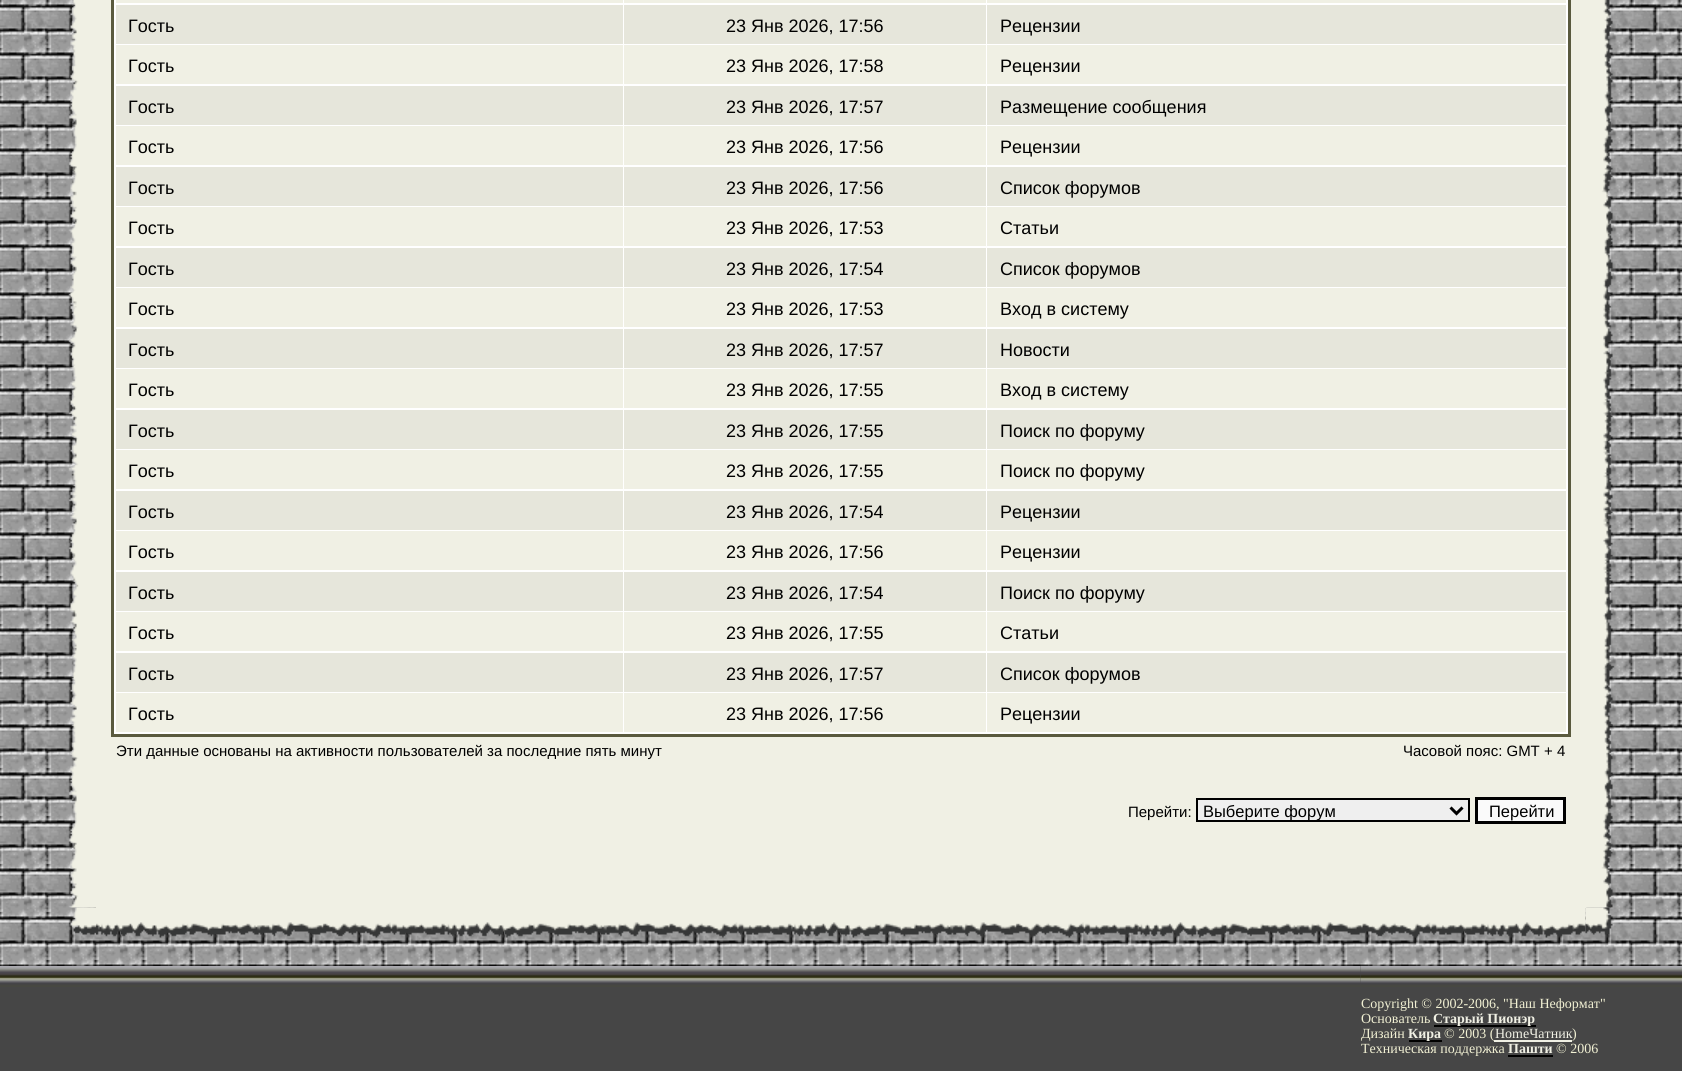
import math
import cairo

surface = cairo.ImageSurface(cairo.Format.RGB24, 1682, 1071)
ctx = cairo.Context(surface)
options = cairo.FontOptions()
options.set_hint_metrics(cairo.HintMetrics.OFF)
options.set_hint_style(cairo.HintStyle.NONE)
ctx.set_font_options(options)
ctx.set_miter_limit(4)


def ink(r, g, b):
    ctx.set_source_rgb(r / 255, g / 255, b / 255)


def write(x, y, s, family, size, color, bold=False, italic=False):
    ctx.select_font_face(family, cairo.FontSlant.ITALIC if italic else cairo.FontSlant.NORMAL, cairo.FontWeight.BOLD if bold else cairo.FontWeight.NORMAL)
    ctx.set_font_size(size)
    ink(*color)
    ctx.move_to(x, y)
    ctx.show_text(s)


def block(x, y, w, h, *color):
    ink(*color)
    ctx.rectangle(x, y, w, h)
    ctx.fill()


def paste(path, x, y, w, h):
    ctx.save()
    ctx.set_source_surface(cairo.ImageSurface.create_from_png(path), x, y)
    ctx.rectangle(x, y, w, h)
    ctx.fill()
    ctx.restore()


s1 = dict(family="Liberation Sans", size=18, color=(0, 0, 0))
s2 = dict(family="Liberation Sans", size=15, color=(0, 0, 0))
s3 = dict(family="Liberation Sans", size=16.5, color=(0, 0, 0))
s4 = dict(family="Liberation Serif", size=14, color=(241, 240, 211))
s5 = dict(family="Liberation Serif", size=14, color=(240, 240, 228), bold=True)
s6 = dict(family="Liberation Serif", size=14, color=(240, 240, 228))

ink(255, 255, 255)
ctx.paint()
paste("pic1.png", 0, 0, 1682, 966)
paste("pic2.png", 68, 0, 28, 908)
block(96, 0, 1490, 908, 240, 240, 228)
ink(255, 255, 255)
ctx.rectangle(112.5, -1.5, 1457, 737)
ctx.fill_preserve()
ink(90, 90, 62)
ctx.set_line_width(3)
ctx.stroke()
block(116, 0, 507, 3, 240, 240, 228)
block(624, 0, 362, 3, 240, 240, 228)
block(987, 0, 579, 3, 240, 240, 228)
block(116, 5, 507, 39, 230, 230, 219)
write(128, 32, "Гость", **s1)
block(624, 5, 362, 39, 230, 230, 219)
write(726, 32, "23 Янв 2026, 17:56", **s1)
block(987, 5, 579, 39, 230, 230, 219)
write(1000, 32, "Рецензии", **s1)
block(116, 45, 507, 39, 240, 240, 228)
write(128, 72, "Гость", **s1)
block(624, 45, 362, 39, 240, 240, 228)
write(726, 72, "23 Янв 2026, 17:58", **s1)
block(987, 45, 579, 39, 240, 240, 228)
write(1000, 72, "Рецензии", **s1)
block(116, 86, 507, 39, 230, 230, 219)
write(128, 113, "Гость", **s1)
block(624, 86, 362, 39, 230, 230, 219)
write(726, 113, "23 Янв 2026, 17:57", **s1)
block(987, 86, 579, 39, 230, 230, 219)
write(1000, 113, "Размещение сообщения", **s1)
block(116, 126, 507, 39, 240, 240, 228)
write(128, 153, "Гость", **s1)
block(624, 126, 362, 39, 240, 240, 228)
write(726, 153, "23 Янв 2026, 17:56", **s1)
block(987, 126, 579, 39, 240, 240, 228)
write(1000, 153, "Рецензии", **s1)
block(116, 167, 507, 39, 230, 230, 219)
write(128, 194, "Гость", **s1)
block(624, 167, 362, 39, 230, 230, 219)
write(726, 194, "23 Янв 2026, 17:56", **s1)
block(987, 167, 579, 39, 230, 230, 219)
write(1000, 194, "Список форумов", **s1)
block(116, 207, 507, 39, 240, 240, 228)
write(128, 234, "Гость", **s1)
block(624, 207, 362, 39, 240, 240, 228)
write(726, 234, "23 Янв 2026, 17:53", **s1)
block(987, 207, 579, 39, 240, 240, 228)
write(1000, 234, "Статьи", **s1)
block(116, 248, 507, 39, 230, 230, 219)
write(128, 275, "Гость", **s1)
block(624, 248, 362, 39, 230, 230, 219)
write(726, 275, "23 Янв 2026, 17:54", **s1)
block(987, 248, 579, 39, 230, 230, 219)
write(1000, 275, "Список форумов", **s1)
block(116, 288, 507, 39, 240, 240, 228)
write(128, 315, "Гость", **s1)
block(624, 288, 362, 39, 240, 240, 228)
write(726, 315, "23 Янв 2026, 17:53", **s1)
block(987, 288, 579, 39, 240, 240, 228)
write(1000, 315, "Вход в систему", **s1)
block(116, 329, 507, 39, 230, 230, 219)
write(128, 356, "Гость", **s1)
block(624, 329, 362, 39, 230, 230, 219)
write(726, 356, "23 Янв 2026, 17:57", **s1)
block(987, 329, 579, 39, 230, 230, 219)
write(1000, 356, "Новости", **s1)
block(116, 369, 507, 39, 240, 240, 228)
write(128, 396, "Гость", **s1)
block(624, 369, 362, 39, 240, 240, 228)
write(726, 396, "23 Янв 2026, 17:55", **s1)
block(987, 369, 579, 39, 240, 240, 228)
write(1000, 396, "Вход в систему", **s1)
block(116, 410, 507, 39, 230, 230, 219)
write(128, 437, "Гость", **s1)
block(624, 410, 362, 39, 230, 230, 219)
write(726, 437, "23 Янв 2026, 17:55", **s1)
block(987, 410, 579, 39, 230, 230, 219)
write(1000, 437, "Поиск по форуму", **s1)
block(116, 450, 507, 39, 240, 240, 228)
write(128, 477, "Гость", **s1)
block(624, 450, 362, 39, 240, 240, 228)
write(726, 477, "23 Янв 2026, 17:55", **s1)
block(987, 450, 579, 39, 240, 240, 228)
write(1000, 477, "Поиск по форуму", **s1)
block(116, 491, 507, 39, 230, 230, 219)
write(128, 518, "Гость", **s1)
block(624, 491, 362, 39, 230, 230, 219)
write(726, 518, "23 Янв 2026, 17:54", **s1)
block(987, 491, 579, 39, 230, 230, 219)
write(1000, 518, "Рецензии", **s1)
block(116, 531, 507, 39, 240, 240, 228)
write(128, 558, "Гость", **s1)
block(624, 531, 362, 39, 240, 240, 228)
write(726, 558, "23 Янв 2026, 17:56", **s1)
block(987, 531, 579, 39, 240, 240, 228)
write(1000, 558, "Рецензии", **s1)
block(116, 572, 507, 39, 230, 230, 219)
write(128, 599, "Гость", **s1)
block(624, 572, 362, 39, 230, 230, 219)
write(726, 599, "23 Янв 2026, 17:54", **s1)
block(987, 572, 579, 39, 230, 230, 219)
write(1000, 599, "Поиск по форуму", **s1)
block(116, 612, 507, 39, 240, 240, 228)
write(128, 639, "Гость", **s1)
block(624, 612, 362, 39, 240, 240, 228)
write(726, 639, "23 Янв 2026, 17:55", **s1)
block(987, 612, 579, 39, 240, 240, 228)
write(1000, 639, "Статьи", **s1)
block(116, 653, 507, 39, 230, 230, 219)
write(128, 680, "Гость", **s1)
block(624, 653, 362, 39, 230, 230, 219)
write(726, 680, "23 Янв 2026, 17:57", **s1)
block(987, 653, 579, 39, 230, 230, 219)
write(1000, 680, "Список форумов", **s1)
block(116, 693, 507, 39, 240, 240, 228)
write(128, 720, "Гость", **s1)
block(624, 693, 362, 39, 240, 240, 228)
write(726, 720, "23 Янв 2026, 17:56", **s1)
block(987, 693, 579, 39, 240, 240, 228)
write(1000, 720, "Рецензии", **s1)
write(116, 756, "Эти данные основаны на активности пользователей за последние пять минут", **s2)
write(1403, 756, "Часовой пояс: GMT + 4", **s2)
write(1128, 817, "Перейти:", **s2)
ink(239, 239, 239)
ctx.rectangle(1197, 799, 272, 22)
ctx.fill_preserve()
ink(0, 0, 0)
ctx.set_line_width(2)
ctx.stroke()
ctx.new_path()
ctx.move_to(1450.5, 807.5)
ctx.line_to(1456.5, 813.5)
ctx.line_to(1462.5, 807.5)
ctx.set_line_width(3)
ctx.stroke()
write(1203, 817, "Выберите форум", **s3)
ink(250, 250, 250)
ctx.rectangle(1476.5, 798.5, 88, 24)
ctx.fill_preserve()
ink(0, 0, 0)
ctx.stroke()
write(1489, 817, "Перейти", **s3)
paste("pic3.png", 1586, 0, 29, 908)
paste("pic4.png", 70, 907, 26, 28)
paste("pic5.png", 96, 908, 1490, 30)
paste("pic6.png", 1585, 907, 28, 28)
block(0, 966, 1361, 105, 70, 70, 70)
paste("pic7.png", 0, 966, 1361, 21)
block(1361, 987, 321, 84, 70, 70, 70)
paste("pic8.png", 1360, 966, 322, 21)
write(1361, 1008, "Copyright © 2002-2006, \"Наш Неформат\"", **s4)
write(1361, 1023, "Основатель", **s4)
block(1434, 1025, 102, 2, 0, 0, 0)
write(1433, 1023, "Старый Пионэр", **s5)
write(1361, 1038, "Дизайн", **s4)
block(1409, 1040, 33, 2, 0, 0, 0)
write(1408, 1038, "Кира", **s5)
write(1444, 1038, "© 2003 (", **s4)
block(1494, 1040, 78, 2, 240, 240, 228)
write(1495, 1038, "HomeЧатник", **s6)
write(1572, 1038, ")", **s4)
write(1361, 1053, "Техническая поддержка", **s4)
write(1508, 1053, "Пашти", **s5)
block(1508, 1055, 45, 2, 0, 0, 0)
write(1556, 1053, "© 2006", **s4)
surface.write_to_png("screenshot.png")
